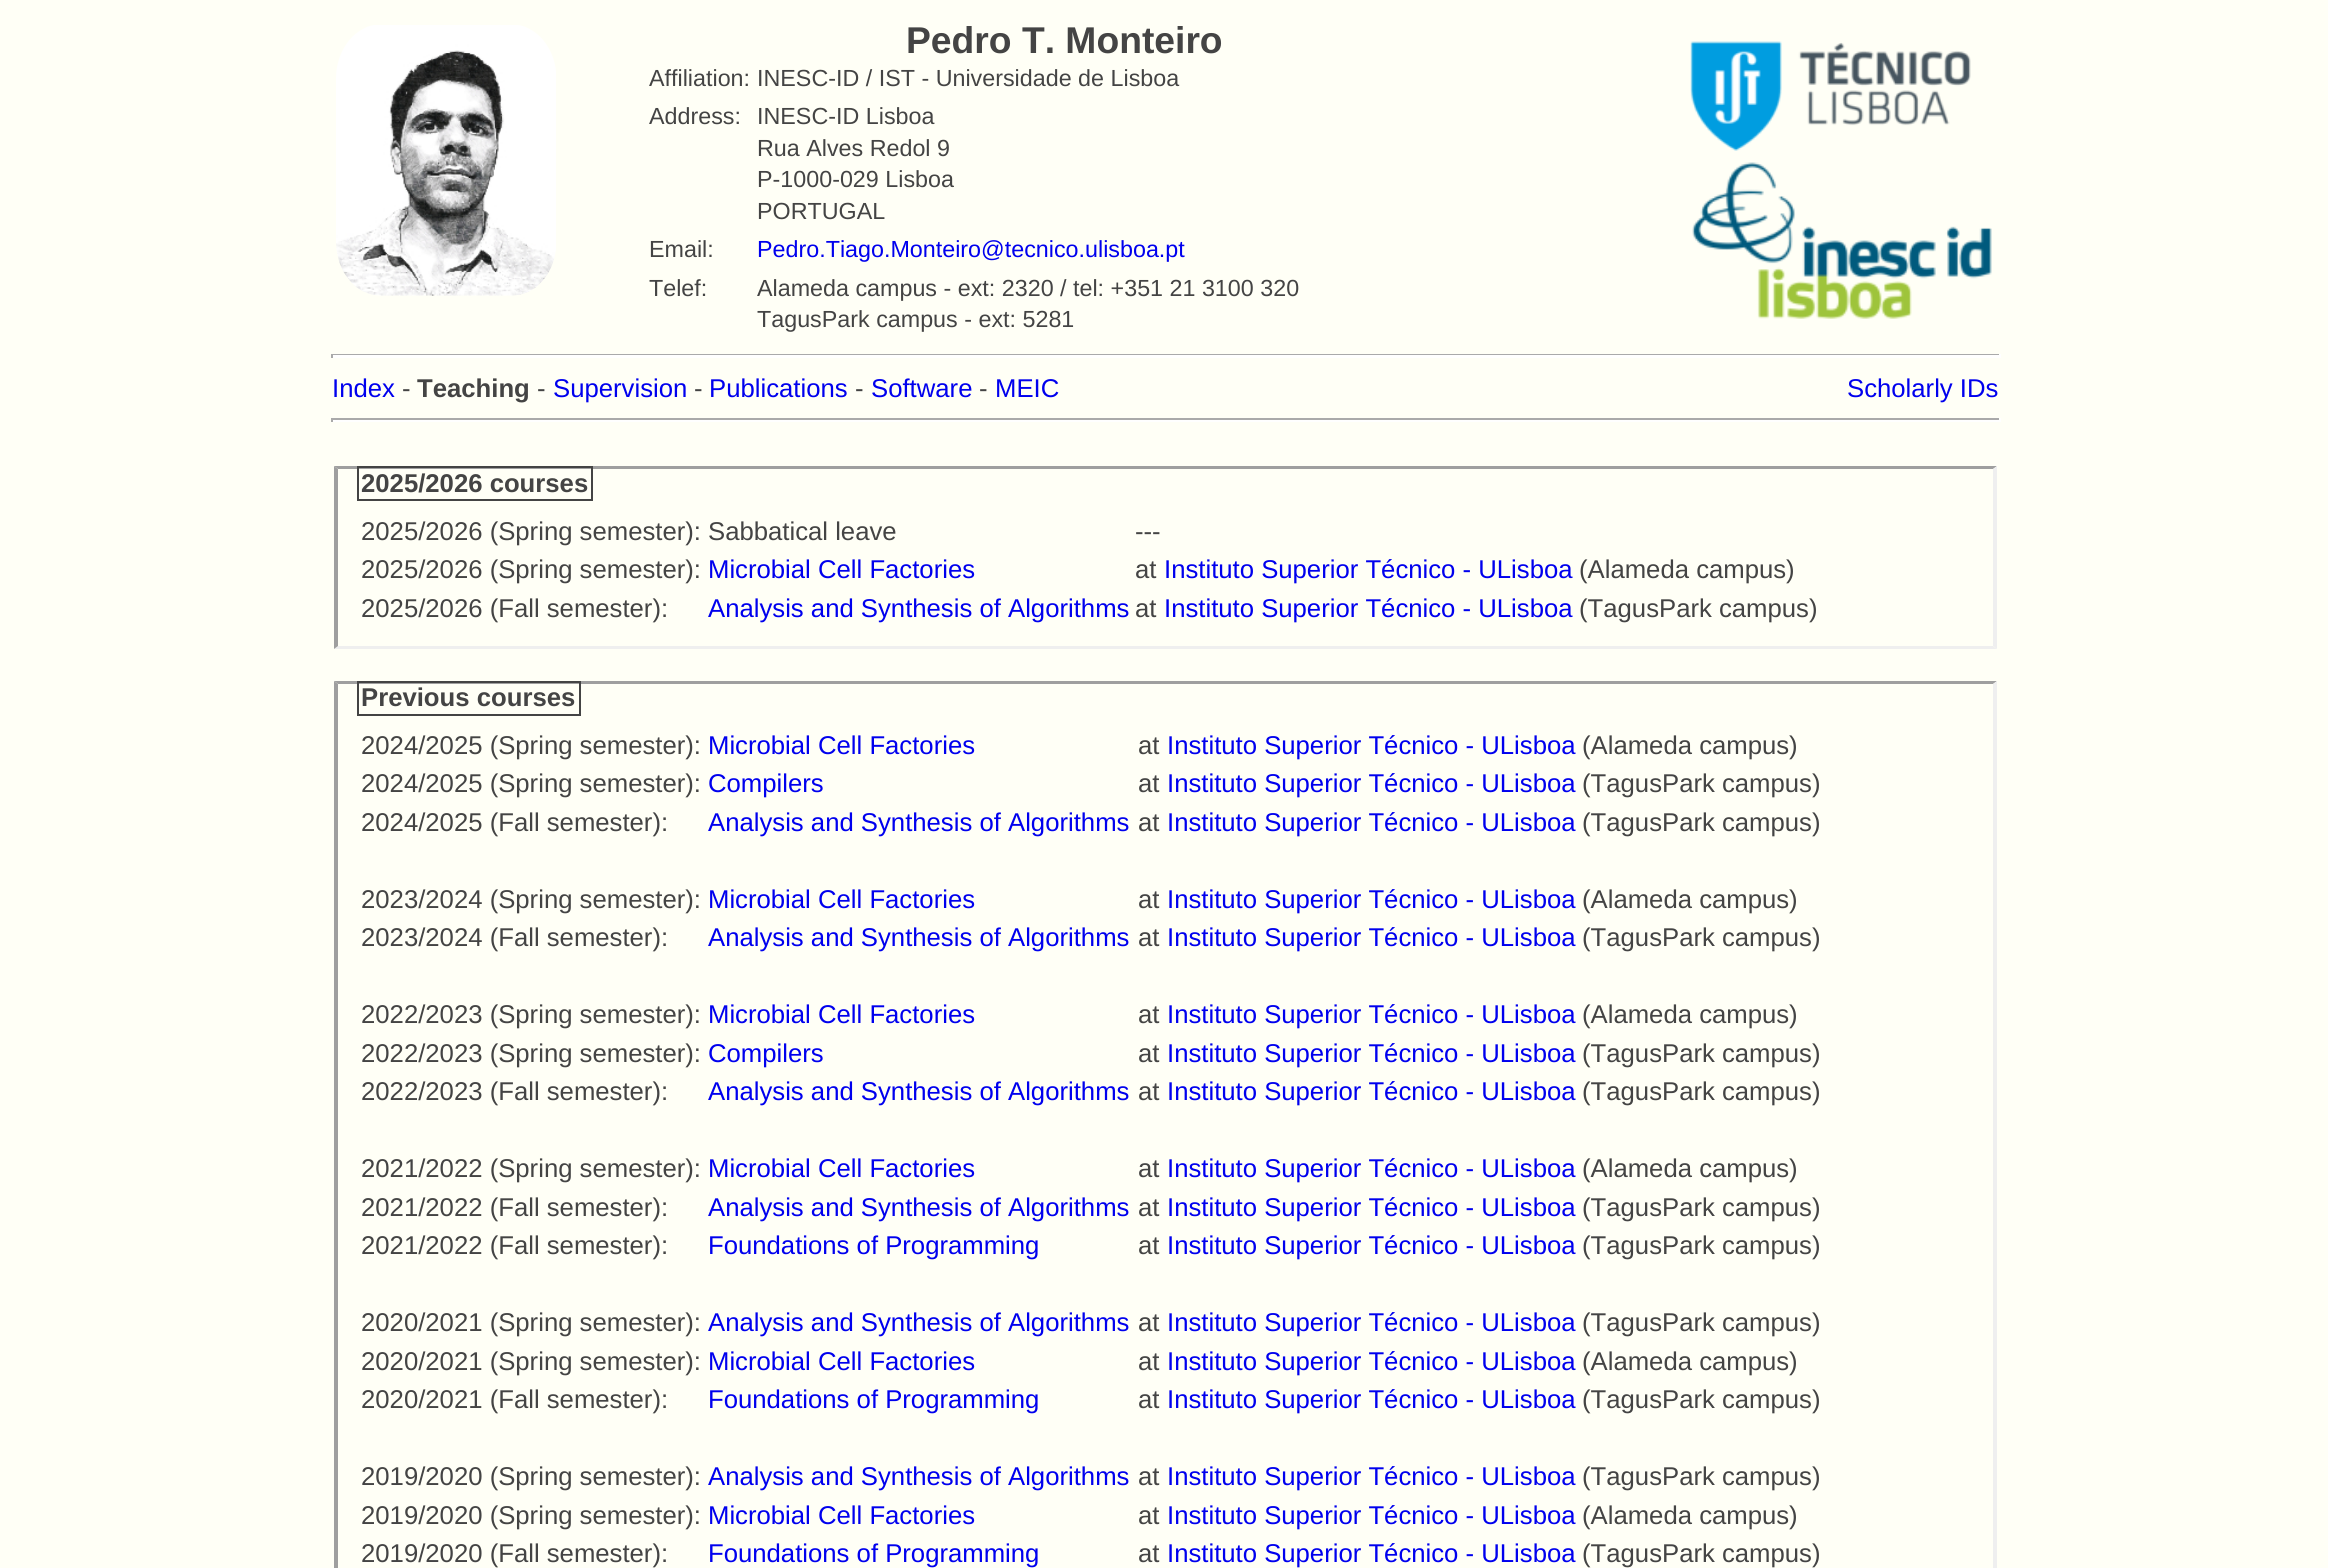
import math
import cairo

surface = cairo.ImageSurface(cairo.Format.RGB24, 2328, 1568)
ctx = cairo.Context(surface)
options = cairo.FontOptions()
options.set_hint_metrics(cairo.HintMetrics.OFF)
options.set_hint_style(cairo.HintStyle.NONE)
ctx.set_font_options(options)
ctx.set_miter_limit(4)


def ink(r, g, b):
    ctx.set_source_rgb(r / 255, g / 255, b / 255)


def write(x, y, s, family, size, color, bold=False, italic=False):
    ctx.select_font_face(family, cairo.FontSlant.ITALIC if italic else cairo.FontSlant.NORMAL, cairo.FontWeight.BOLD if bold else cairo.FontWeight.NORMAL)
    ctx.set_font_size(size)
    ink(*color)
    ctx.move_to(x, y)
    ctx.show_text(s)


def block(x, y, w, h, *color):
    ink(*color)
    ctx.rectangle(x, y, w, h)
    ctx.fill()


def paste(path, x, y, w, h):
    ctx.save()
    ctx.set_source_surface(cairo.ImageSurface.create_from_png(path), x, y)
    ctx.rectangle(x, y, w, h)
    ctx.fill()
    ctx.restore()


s1 = dict(family="Liberation Sans", size=37.25, color=(68, 68, 68), bold=True)
s2 = dict(family="Liberation Sans", size=23.3, color=(68, 68, 68))
s3 = dict(family="Liberation Sans", size=23.3, color=(0, 0, 238))
s4 = dict(family="Liberation Sans", size=25.7, color=(0, 0, 238))
s5 = dict(family="Liberation Sans", size=25.7, color=(68, 68, 68))
s6 = dict(family="Liberation Sans", size=25.7, color=(68, 68, 68), bold=True)

ink(255, 255, 246)
ctx.paint()
paste("pic1.png", 336, 25, 220, 271)
write(906, 53, "Pedro T. Monteiro", **s1)
paste("pic2.png", 1690, 41, 281, 110)
paste("pic3.png", 1692, 162, 300, 157)
write(649, 86, "Affiliation:", **s2)
write(757, 86, "INESC-ID / IST - Universidade de Lisboa", **s2)
write(649, 124, "Address:", **s2)
write(757, 124, "INESC-ID Lisboa", **s2)
write(757, 156, "Rua Alves Redol 9", **s2)
write(757, 187, "P-1000-029 Lisboa", **s2)
write(757, 219, "PORTUGAL", **s2)
write(649, 257, "Email:", **s2)
write(757, 257, "Pedro.Tiago.Monteiro@tecnico.ulisboa.pt", **s3)
write(649, 296, "Telef:", **s2)
write(757, 296, "Alameda campus - ext: 2320 / tel: +351 21 3100 320", **s2)
write(757, 327, "TagusPark campus - ext: 5281", **s2)
block(331, 357, 1669, 1, 255, 255, 255)
block(331, 354, 1669, 1, 170, 170, 170)
block(1999, 354, 2, 4, 255, 255, 255)
block(331, 355, 1669, 2, 255, 255, 255)
block(331, 354, 2, 4, 170, 170, 170)
write(332, 397, "Index", **s4)
write(402, 397, "-", **s5)
write(417, 397, "Teaching", **s6)
write(537, 397, "-", **s5)
write(553, 397, "Supervision", **s4)
write(694, 397, "-", **s5)
write(709, 397, "Publications", **s4)
write(855, 397, "-", **s5)
write(871, 397, "Software", **s4)
write(979, 397, "-", **s5)
write(995, 397, "MEIC", **s4)
write(1847, 397, "Scholarly IDs", **s4)
block(331, 420, 1669, 2, 255, 255, 255)
block(331, 418, 1669, 2, 170, 170, 170)
block(1999, 418, 2, 4, 255, 255, 255)
block(331, 418, 2, 4, 170, 170, 170)
ink(159, 159, 159)
ctx.new_path()
ctx.move_to(334, 466)
ctx.line_to(1997, 466)
ctx.line_to(1993, 469)
ctx.line_to(338, 469)
ctx.close_path()
ctx.fill()
ink(239, 239, 239)
ctx.new_path()
ctx.move_to(1997, 466)
ctx.line_to(1997, 649)
ctx.line_to(1993, 646)
ctx.line_to(1993, 469)
ctx.close_path()
ctx.fill()
ctx.new_path()
ctx.move_to(1997, 649)
ctx.line_to(334, 649)
ctx.line_to(338, 646)
ctx.line_to(1993, 646)
ctx.close_path()
ctx.fill()
ink(159, 159, 159)
ctx.new_path()
ctx.move_to(334, 649)
ctx.line_to(334, 466)
ctx.line_to(338, 469)
ctx.line_to(338, 646)
ctx.close_path()
ctx.fill()
ctx.rectangle(358, 467, 234, 33)
ink(68, 68, 68)
ctx.stroke()
write(361, 492, "2025/2026 courses", **s6)
write(361, 540, "2025/2026 (Spring semester):", **s5)
write(708, 540, "Sabbatical leave", **s5)
write(1135, 540, "---", **s5)
write(361, 578, "2025/2026 (Spring semester):", **s5)
write(708, 578, "Microbial Cell Factories", **s4)
write(1135, 578, "at", **s5)
write(1164, 578, "Instituto Superior Técnico - ULisboa", **s4)
write(1579, 578, "(Alameda campus)", **s5)
write(361, 617, "2025/2026 (Fall semester):", **s5)
write(708, 617, "Analysis and Synthesis of Algorithms", **s4)
write(1135, 617, "at", **s5)
write(1164, 617, "Instituto Superior Técnico - ULisboa", **s4)
write(1579, 617, "(TagusPark campus)", **s5)
ink(159, 159, 159)
ctx.new_path()
ctx.move_to(334, 681)
ctx.line_to(1997, 681)
ctx.line_to(1993, 684)
ctx.line_to(338, 684)
ctx.close_path()
ctx.fill()
ink(239, 239, 239)
ctx.new_path()
ctx.move_to(1997, 681)
ctx.line_to(1997, 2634)
ctx.line_to(1993, 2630)
ctx.line_to(1993, 684)
ctx.close_path()
ctx.fill()
ink(159, 159, 159)
ctx.new_path()
ctx.move_to(334, 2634)
ctx.line_to(334, 681)
ctx.line_to(338, 684)
ctx.line_to(338, 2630)
ctx.close_path()
ctx.fill()
ctx.rectangle(358, 682, 222, 33)
ink(68, 68, 68)
ctx.stroke()
write(361, 706, "Previous courses", **s6)
write(361, 754, "2024/2025 (Spring semester):", **s5)
write(708, 754, "Microbial Cell Factories", **s4)
write(1138, 754, "at", **s5)
write(1167, 754, "Instituto Superior Técnico - ULisboa", **s4)
write(1582, 754, "(Alameda campus)", **s5)
write(361, 792, "2024/2025 (Spring semester):", **s5)
write(708, 792, "Compilers", **s4)
write(1138, 792, "at", **s5)
write(1167, 792, "Instituto Superior Técnico - ULisboa", **s4)
write(1582, 792, "(TagusPark campus)", **s5)
write(361, 831, "2024/2025 (Fall semester):", **s5)
write(708, 831, "Analysis and Synthesis of Algorithms", **s4)
write(1138, 831, "at", **s5)
write(1167, 831, "Instituto Superior Técnico - ULisboa", **s4)
write(1582, 831, "(TagusPark campus)", **s5)
write(361, 908, "2023/2024 (Spring semester):", **s5)
write(708, 908, "Microbial Cell Factories", **s4)
write(1138, 908, "at", **s5)
write(1167, 908, "Instituto Superior Técnico - ULisboa", **s4)
write(1582, 908, "(Alameda campus)", **s5)
write(361, 946, "2023/2024 (Fall semester):", **s5)
write(708, 946, "Analysis and Synthesis of Algorithms", **s4)
write(1138, 946, "at", **s5)
write(1167, 946, "Instituto Superior Técnico - ULisboa", **s4)
write(1582, 946, "(TagusPark campus)", **s5)
write(361, 1023, "2022/2023 (Spring semester):", **s5)
write(708, 1023, "Microbial Cell Factories", **s4)
write(1138, 1023, "at", **s5)
write(1167, 1023, "Instituto Superior Técnico - ULisboa", **s4)
write(1582, 1023, "(Alameda campus)", **s5)
write(361, 1062, "2022/2023 (Spring semester):", **s5)
write(708, 1062, "Compilers", **s4)
write(1138, 1062, "at", **s5)
write(1167, 1062, "Instituto Superior Técnico - ULisboa", **s4)
write(1582, 1062, "(TagusPark campus)", **s5)
write(361, 1100, "2022/2023 (Fall semester):", **s5)
write(708, 1100, "Analysis and Synthesis of Algorithms", **s4)
write(1138, 1100, "at", **s5)
write(1167, 1100, "Instituto Superior Técnico - ULisboa", **s4)
write(1582, 1100, "(TagusPark campus)", **s5)
write(361, 1177, "2021/2022 (Spring semester):", **s5)
write(708, 1177, "Microbial Cell Factories", **s4)
write(1138, 1177, "at", **s5)
write(1167, 1177, "Instituto Superior Técnico - ULisboa", **s4)
write(1582, 1177, "(Alameda campus)", **s5)
write(361, 1216, "2021/2022 (Fall semester):", **s5)
write(708, 1216, "Analysis and Synthesis of Algorithms", **s4)
write(1138, 1216, "at", **s5)
write(1167, 1216, "Instituto Superior Técnico - ULisboa", **s4)
write(1582, 1216, "(TagusPark campus)", **s5)
write(361, 1254, "2021/2022 (Fall semester):", **s5)
write(708, 1254, "Foundations of Programming", **s4)
write(1138, 1254, "at", **s5)
write(1167, 1254, "Instituto Superior Técnico - ULisboa", **s4)
write(1582, 1254, "(TagusPark campus)", **s5)
write(361, 1331, "2020/2021 (Spring semester):", **s5)
write(708, 1331, "Analysis and Synthesis of Algorithms", **s4)
write(1138, 1331, "at", **s5)
write(1167, 1331, "Instituto Superior Técnico - ULisboa", **s4)
write(1582, 1331, "(TagusPark campus)", **s5)
write(361, 1370, "2020/2021 (Spring semester):", **s5)
write(708, 1370, "Microbial Cell Factories", **s4)
write(1138, 1370, "at", **s5)
write(1167, 1370, "Instituto Superior Técnico - ULisboa", **s4)
write(1582, 1370, "(Alameda campus)", **s5)
write(361, 1408, "2020/2021 (Fall semester):", **s5)
write(708, 1408, "Foundations of Programming", **s4)
write(1138, 1408, "at", **s5)
write(1167, 1408, "Instituto Superior Técnico - ULisboa", **s4)
write(1582, 1408, "(TagusPark campus)", **s5)
write(361, 1485, "2019/2020 (Spring semester):", **s5)
write(708, 1485, "Analysis and Synthesis of Algorithms", **s4)
write(1138, 1485, "at", **s5)
write(1167, 1485, "Instituto Superior Técnico - ULisboa", **s4)
write(1582, 1485, "(TagusPark campus)", **s5)
write(361, 1524, "2019/2020 (Spring semester):", **s5)
write(708, 1524, "Microbial Cell Factories", **s4)
write(1138, 1524, "at", **s5)
write(1167, 1524, "Instituto Superior Técnico - ULisboa", **s4)
write(1582, 1524, "(Alameda campus)", **s5)
write(361, 1562, "2019/2020 (Fall semester):", **s5)
write(708, 1562, "Foundations of Programming", **s4)
write(1138, 1562, "at", **s5)
write(1167, 1562, "Instituto Superior Técnico - ULisboa", **s4)
write(1582, 1562, "(TagusPark campus)", **s5)
surface.write_to_png("screenshot.png")
